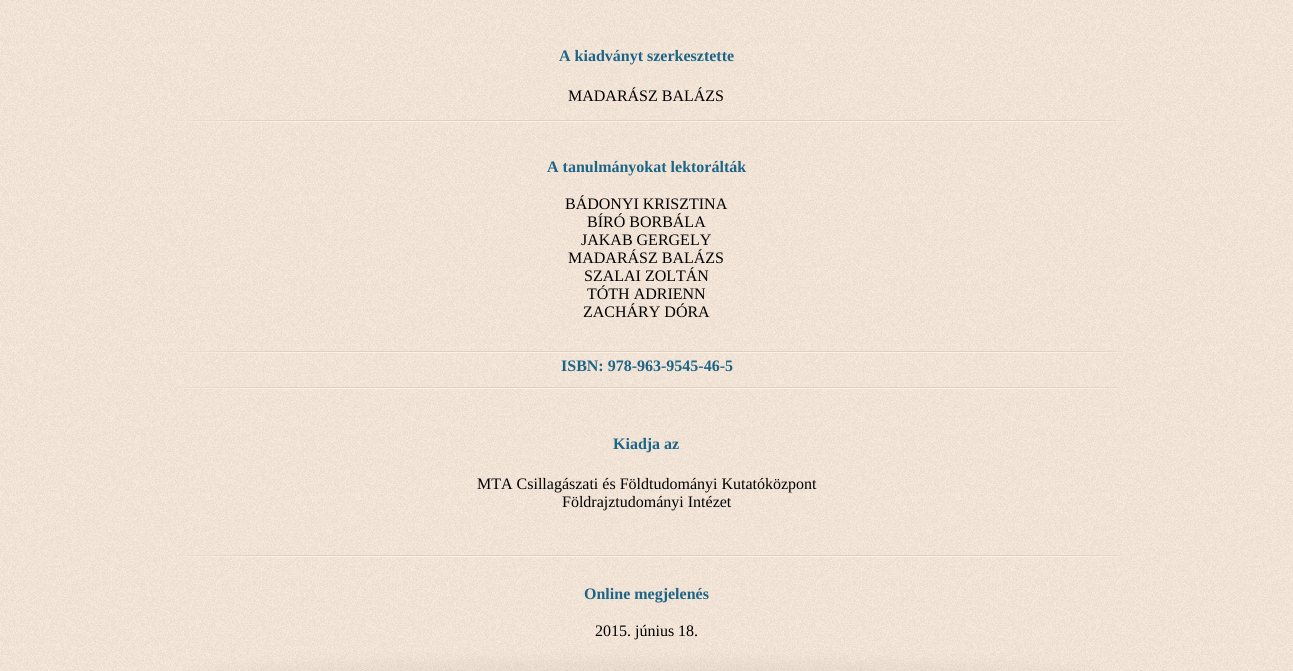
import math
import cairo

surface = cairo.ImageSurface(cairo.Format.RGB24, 1293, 671)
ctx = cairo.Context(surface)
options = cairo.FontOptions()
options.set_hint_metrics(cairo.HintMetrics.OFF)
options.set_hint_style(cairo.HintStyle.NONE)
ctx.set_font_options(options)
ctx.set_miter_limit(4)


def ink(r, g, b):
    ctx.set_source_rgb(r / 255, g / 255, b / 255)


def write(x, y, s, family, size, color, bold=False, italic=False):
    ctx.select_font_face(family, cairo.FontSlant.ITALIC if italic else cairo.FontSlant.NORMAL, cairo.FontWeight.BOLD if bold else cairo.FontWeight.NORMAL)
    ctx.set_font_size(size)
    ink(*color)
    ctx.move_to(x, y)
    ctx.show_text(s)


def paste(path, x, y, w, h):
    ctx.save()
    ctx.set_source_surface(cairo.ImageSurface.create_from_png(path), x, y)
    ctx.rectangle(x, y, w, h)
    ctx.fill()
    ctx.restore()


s1 = dict(family="Liberation Serif", size=16, color=(28, 101, 134), bold=True)
s2 = dict(family="Liberation Serif", size=16, color=(0, 0, 0))

ink(255, 255, 255)
ctx.paint()
paste("pic1.png", 0, 0, 1293, 671)
write(559, 61, "A kiadványt szerkesztette", **s1)
write(568, 101, "MADARÁSZ BALÁZS", **s2)
paste("pic2.png", 178, 120, 948, 2)
write(547, 172, "A tanulmányokat lektorálták", **s1)
write(565, 209, "BÁDONYI KRISZTINA", **s2)
write(587, 227, "BÍRÓ BORBÁLA", **s2)
write(581, 245, "JAKAB GERGELY", **s2)
write(568, 263, "MADARÁSZ BALÁZS", **s2)
write(584, 281, "SZALAI ZOLTÁN", **s2)
write(587, 299, "TÓTH ADRIENN", **s2)
write(583, 317, "ZACHÁRY DÓRA", **s2)
paste("pic3.png", 177, 351, 949, 2)
write(561, 371, "ISBN: 978-963-9545-46-5", **s1)
paste("pic4.png", 177, 387, 950, 2)
write(613, 449, "Kiadja az", **s1)
write(477, 489, "MTA Csillagászati és Földtudományi Kutatóközpont", **s2)
write(562, 507, "Földrajztudományi Intézet", **s2)
paste("pic3.png", 177, 555, 949, 2)
write(584, 599, "Online megjelenés", **s1)
write(595, 636, "2015. június 18.", **s2)
paste("pic5.png", 167, 640, 960, 31)
surface.write_to_png("screenshot.png")
